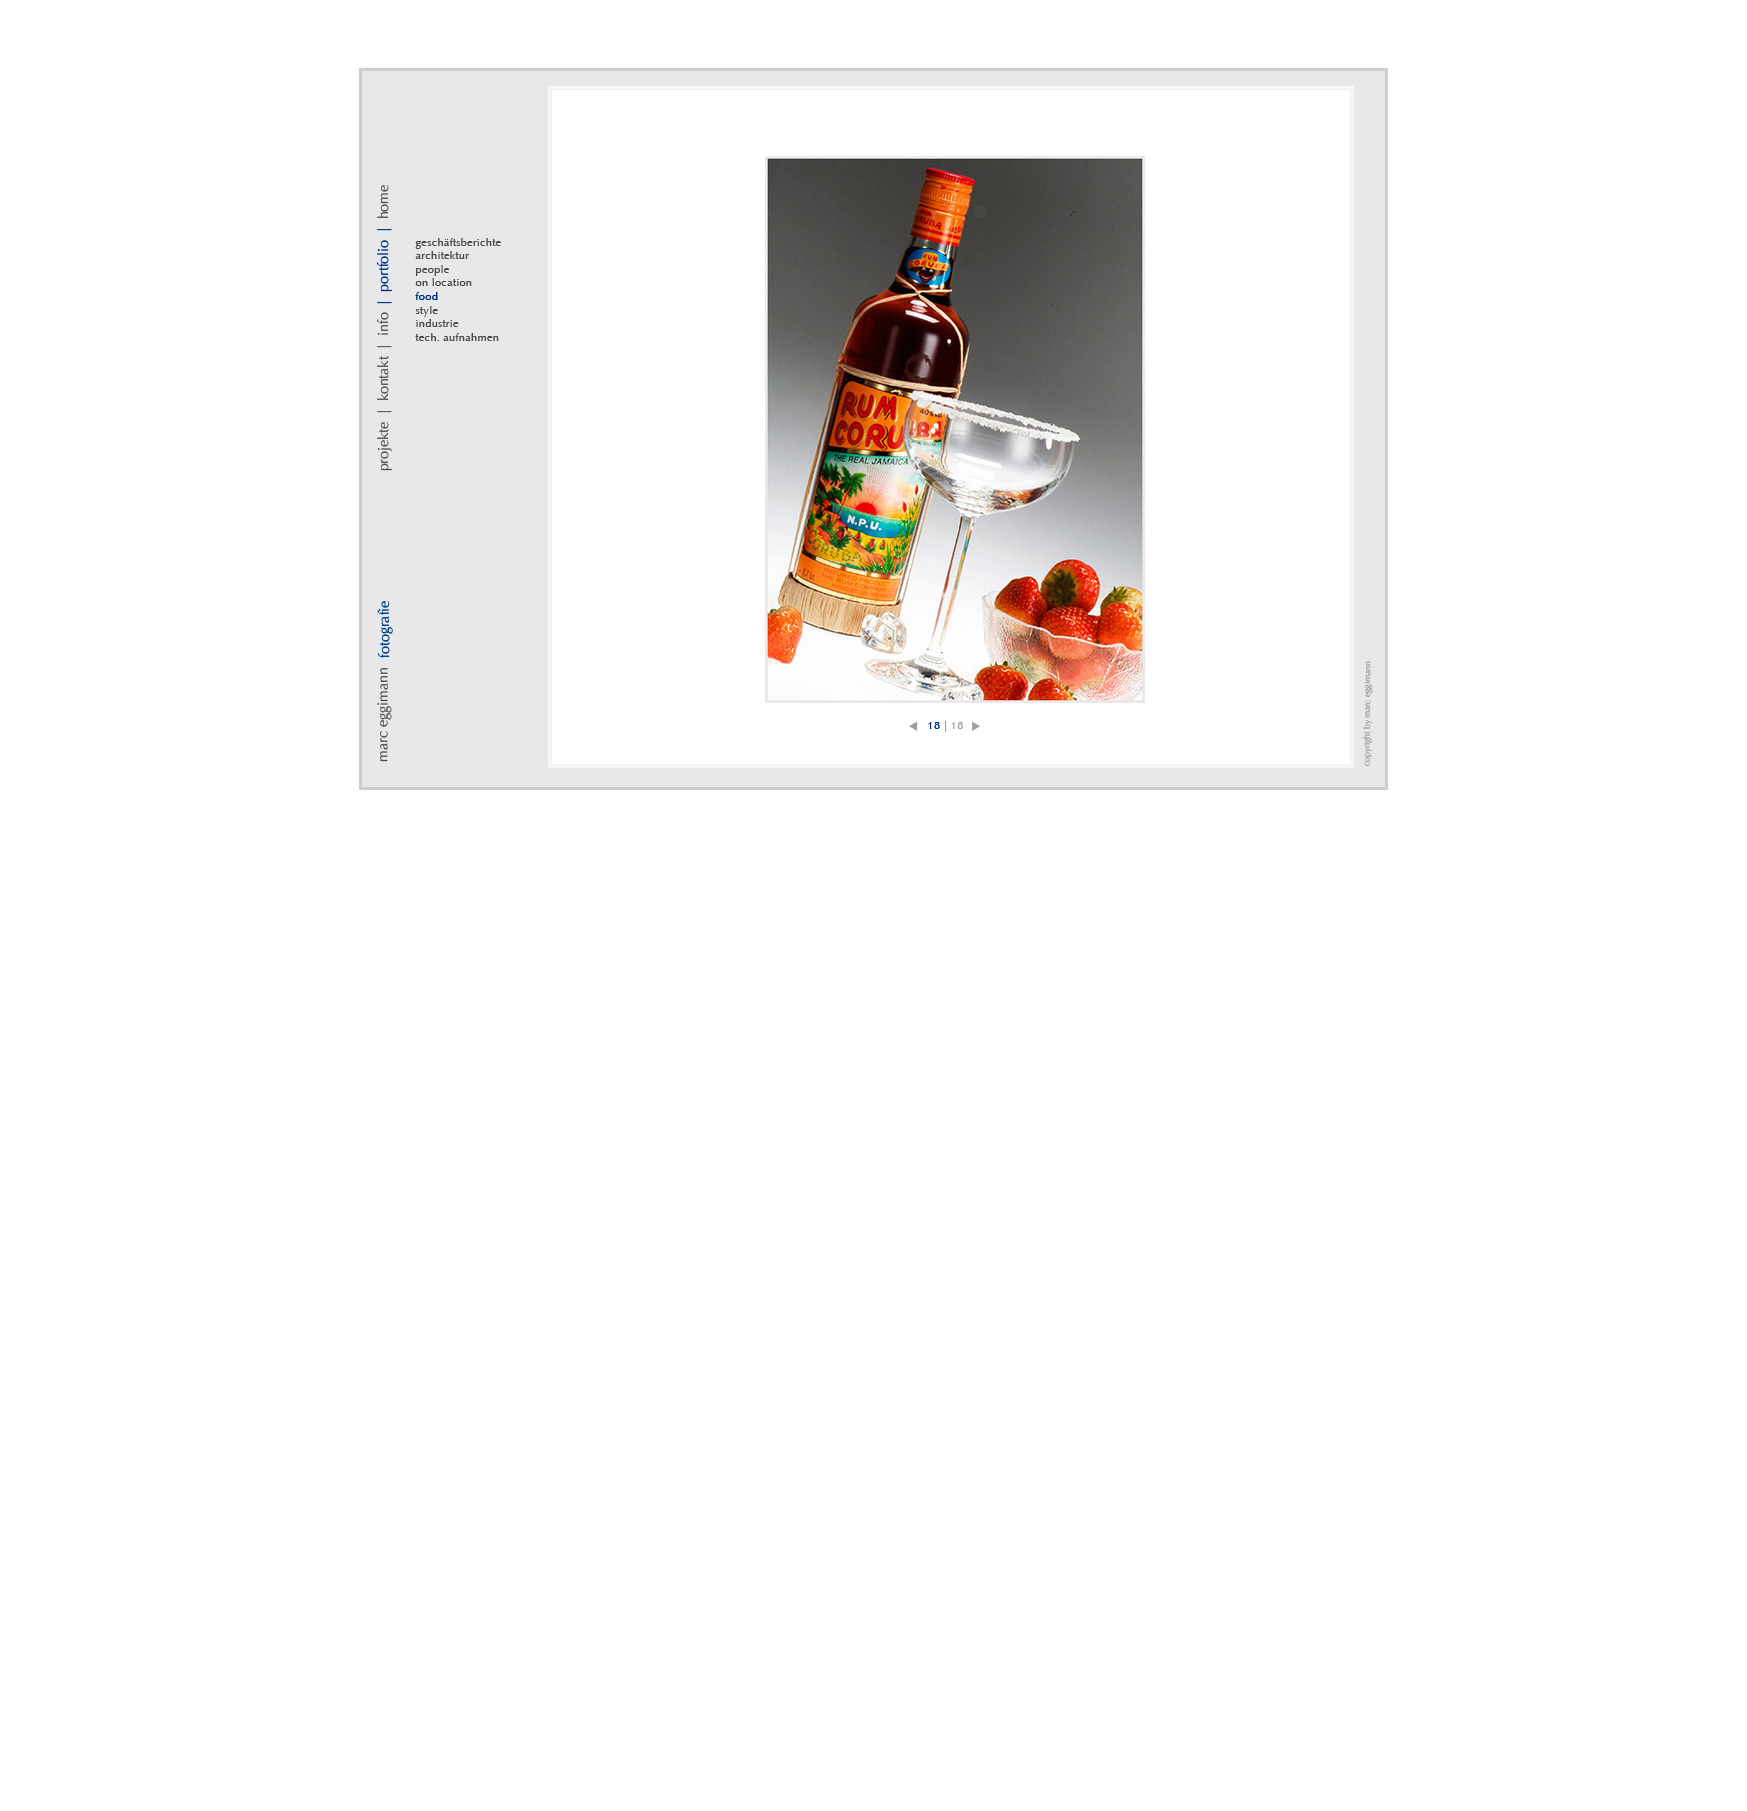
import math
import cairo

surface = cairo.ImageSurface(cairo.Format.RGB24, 1747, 1811)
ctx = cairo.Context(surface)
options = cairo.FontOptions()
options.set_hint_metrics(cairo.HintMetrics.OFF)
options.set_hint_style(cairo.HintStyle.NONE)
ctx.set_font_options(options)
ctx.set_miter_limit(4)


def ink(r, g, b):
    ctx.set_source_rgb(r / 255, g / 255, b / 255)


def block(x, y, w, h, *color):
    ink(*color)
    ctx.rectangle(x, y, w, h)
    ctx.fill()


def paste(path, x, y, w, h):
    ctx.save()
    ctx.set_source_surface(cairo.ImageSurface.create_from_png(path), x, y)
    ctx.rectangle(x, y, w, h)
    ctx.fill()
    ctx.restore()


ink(255, 255, 255)
ctx.paint()
paste("pic1.png", 359, 68, 35, 113)
paste("pic2.png", 394, 68, 150, 113)
paste("pic3.png", 544, 68, 14, 272)
paste("pic4.png", 558, 68, 340, 22)
paste("pic5.png", 898, 68, 28, 22)
paste("pic6.png", 926, 68, 41, 22)
paste("pic7.png", 967, 68, 16, 22)
paste("pic8.png", 983, 68, 357, 22)
paste("pic9.png", 1340, 68, 48, 272)
paste("pic10.png", 359, 181, 35, 39)
block(394, 181, 150, 39, 232, 232, 232)
paste("pic11.png", 765, 152, 385, 552)
paste("pic12.png", 359, 220, 35, 76)
paste("pic13.png", 394, 220, 150, 30)
paste("pic14.png", 394, 250, 150, 13)
paste("pic15.png", 394, 263, 150, 14)
paste("pic16.png", 394, 277, 150, 13)
paste("pic17.png", 359, 296, 35, 44)
paste("pic18.png", 394, 290, 150, 15)
paste("pic19.png", 394, 305, 150, 12)
paste("pic20.png", 394, 317, 150, 14)
paste("pic21.png", 394, 331, 150, 16)
paste("pic22.png", 359, 340, 35, 68)
paste("pic23.png", 544, 340, 8, 238)
paste("pic24.png", 1350, 340, 38, 238)
paste("pic25.png", 359, 408, 35, 170)
block(394, 347, 150, 231, 232, 232, 232)
paste("pic26.png", 359, 578, 35, 212)
paste("pic27.png", 394, 578, 150, 212)
paste("pic28.png", 544, 578, 14, 212)
paste("pic29.png", 1340, 578, 48, 212)
paste("pic30.png", 909, 721, 9, 10)
paste("pic31.png", 928, 721, 35, 11)
paste("pic32.png", 972, 721, 8, 10)
paste("pic33.png", 558, 764, 340, 26)
paste("pic34.png", 898, 764, 28, 26)
paste("pic35.png", 926, 764, 41, 26)
paste("pic36.png", 967, 764, 16, 26)
paste("pic37.png", 983, 764, 357, 26)
surface.write_to_png("screenshot.png")
